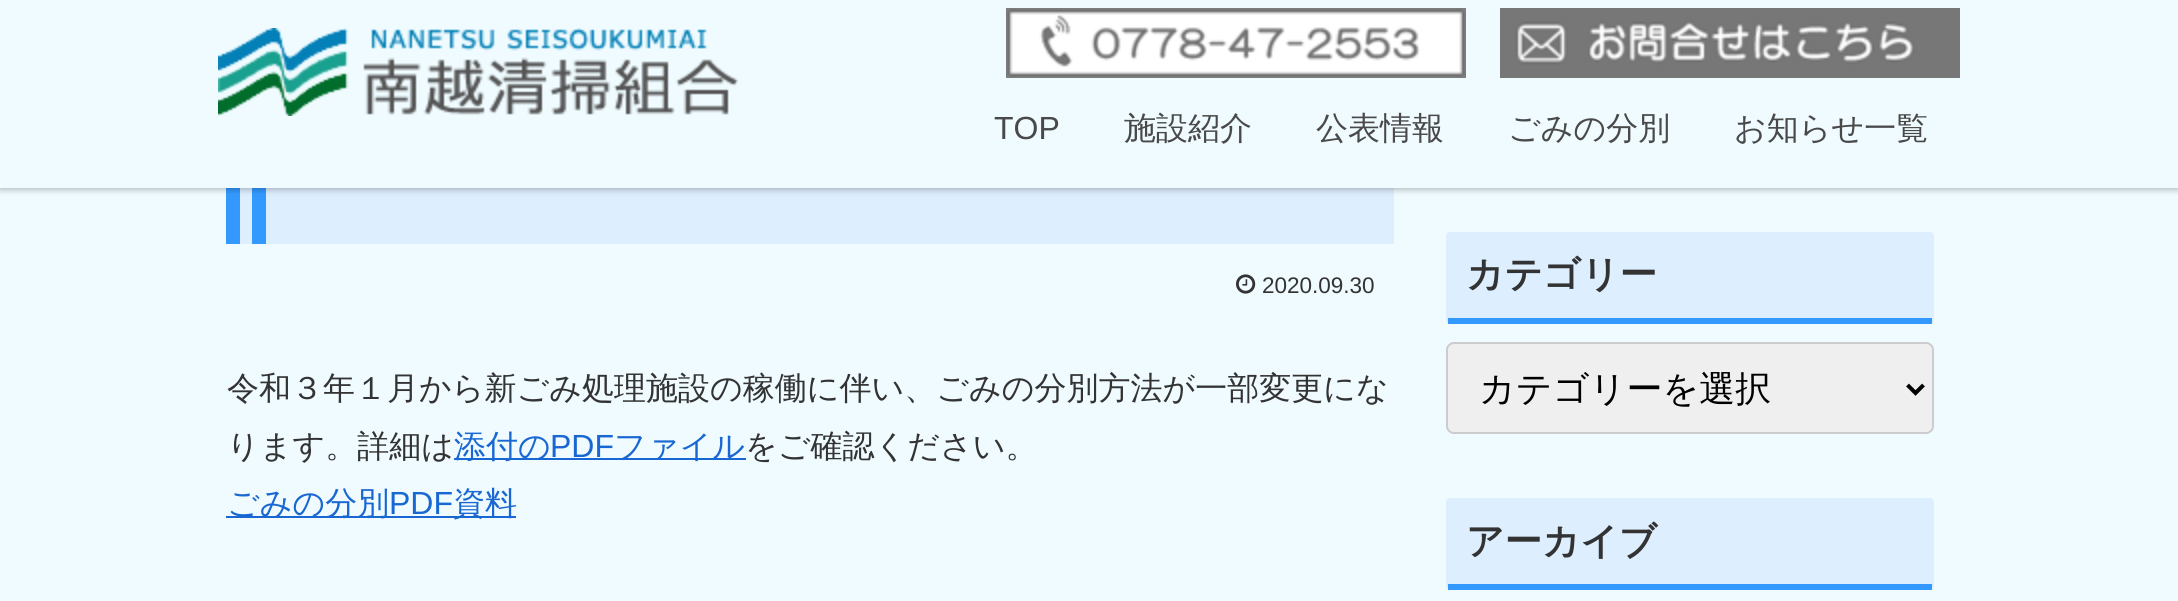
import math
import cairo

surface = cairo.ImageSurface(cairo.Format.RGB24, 2178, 601)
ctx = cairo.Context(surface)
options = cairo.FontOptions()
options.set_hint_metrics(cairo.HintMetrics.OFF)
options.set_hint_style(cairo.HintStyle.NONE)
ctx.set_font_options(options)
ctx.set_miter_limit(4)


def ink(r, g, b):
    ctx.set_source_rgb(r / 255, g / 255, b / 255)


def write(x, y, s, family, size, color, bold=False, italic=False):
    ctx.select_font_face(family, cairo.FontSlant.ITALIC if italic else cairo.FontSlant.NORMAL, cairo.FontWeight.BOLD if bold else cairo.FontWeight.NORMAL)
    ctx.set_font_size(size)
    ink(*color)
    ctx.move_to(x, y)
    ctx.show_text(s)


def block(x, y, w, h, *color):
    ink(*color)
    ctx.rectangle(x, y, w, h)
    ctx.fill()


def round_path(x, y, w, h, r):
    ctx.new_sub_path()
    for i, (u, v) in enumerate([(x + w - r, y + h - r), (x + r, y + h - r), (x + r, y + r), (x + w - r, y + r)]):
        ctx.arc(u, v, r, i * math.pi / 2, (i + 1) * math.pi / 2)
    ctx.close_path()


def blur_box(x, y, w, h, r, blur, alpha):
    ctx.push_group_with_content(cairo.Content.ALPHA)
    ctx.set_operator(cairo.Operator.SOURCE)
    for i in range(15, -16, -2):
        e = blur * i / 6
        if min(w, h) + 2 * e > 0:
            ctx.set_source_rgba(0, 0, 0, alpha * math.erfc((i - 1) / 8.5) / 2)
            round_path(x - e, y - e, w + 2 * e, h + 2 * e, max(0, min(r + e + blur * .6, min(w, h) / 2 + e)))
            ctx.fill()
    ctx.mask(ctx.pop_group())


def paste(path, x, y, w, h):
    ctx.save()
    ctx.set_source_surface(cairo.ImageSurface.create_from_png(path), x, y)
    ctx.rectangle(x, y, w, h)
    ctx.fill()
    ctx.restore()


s1 = dict(family="Liberation Sans", size=32, color=(73, 73, 73))
s2 = dict(family="WenQuanYi Zen Hei Medium", size=32, color=(73, 73, 73))
s3 = dict(family="Liberation Sans", size=22.5, color=(51, 51, 51))
s4 = dict(family="WenQuanYi Zen Hei Medium", size=32, color=(51, 51, 51))
s5 = dict(family="WenQuanYi Zen Hei Medium", size=32, color=(25, 103, 210))
s6 = dict(family="Liberation Sans", size=32, color=(25, 103, 210))
s7 = dict(family="WenQuanYi Zen Hei", size=37.5, color=(51, 51, 51), bold=True)
s8 = dict(family="WenQuanYi Zen Hei Medium", size=36, color=(0, 0, 0))

ink(239, 251, 255)
ctx.paint()
block(240, 188, 1154, 56, 221, 238, 255)
block(226, 188, 14, 56, 51, 153, 255)
block(252, 188, 14, 56, 51, 153, 255)
ink(0, 0, 0)
blur_box(0, -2, 2178, 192, 0, 3, 0.25)
block(0, 0, 2178, 188, 239, 251, 255)
paste("pic1.png", 218, 28, 520, 88)
paste("pic2.png", 1006, 8, 460, 70)
paste("pic3.png", 1500, 8, 460, 70)
write(994, 139, "TOP", **s1)
write(1124, 139, "施設紹介", **s2)
write(1316, 139, "公表情報", **s2)
write(1508, 139, "ごみの分別", **s2)
write(1734, 139, "お知らせ一覧", **s2)
paste("pic4.png", 1236, 274, 20, 20)
write(1262, 293, "2020.09.30", **s3)
write(227, 399, "令和３年１月から新ごみ処理施設の稼働に伴い、ごみの分別方法が一部変更にな", **s4)
write(227, 457, "ります。詳細は", **s4)
block(454, 458, 292, 2, 25, 103, 210)
write(454, 457, "添付の", **s5)
write(550, 457, "PDF", **s6)
write(614, 457, "ファイル", **s5)
write(745, 457, "をご確認ください。", **s4)
block(226, 516, 290, 2, 25, 103, 210)
write(227, 514, "ごみの分別", **s5)
write(389, 514, "PDF", **s6)
write(453, 514, "資料", **s5)
ink(221, 238, 255)
round_path(1446, 232, 488, 92, 4)
ctx.fill()
block(1448, 318, 484, 6, 51, 153, 255)
write(1466, 287, "カテゴリー", **s7)
ink(239, 239, 239)
round_path(1447, 343, 486, 90, 7)
ctx.fill_preserve()
ink(204, 204, 204)
ctx.stroke()
ctx.new_path()
ctx.move_to(1907.5, 385)
ctx.line_to(1915.5, 393)
ctx.line_to(1923.5, 385)
ink(0, 0, 0)
ctx.set_line_width(4)
ctx.stroke()
write(1479, 401, "カテゴリーを選択", **s8)
ink(221, 238, 255)
round_path(1446, 498, 488, 92, 4)
ctx.fill()
block(1448, 584, 484, 6, 51, 153, 255)
write(1466, 554, "アーカイブ", **s7)
surface.write_to_png("screenshot.png")
